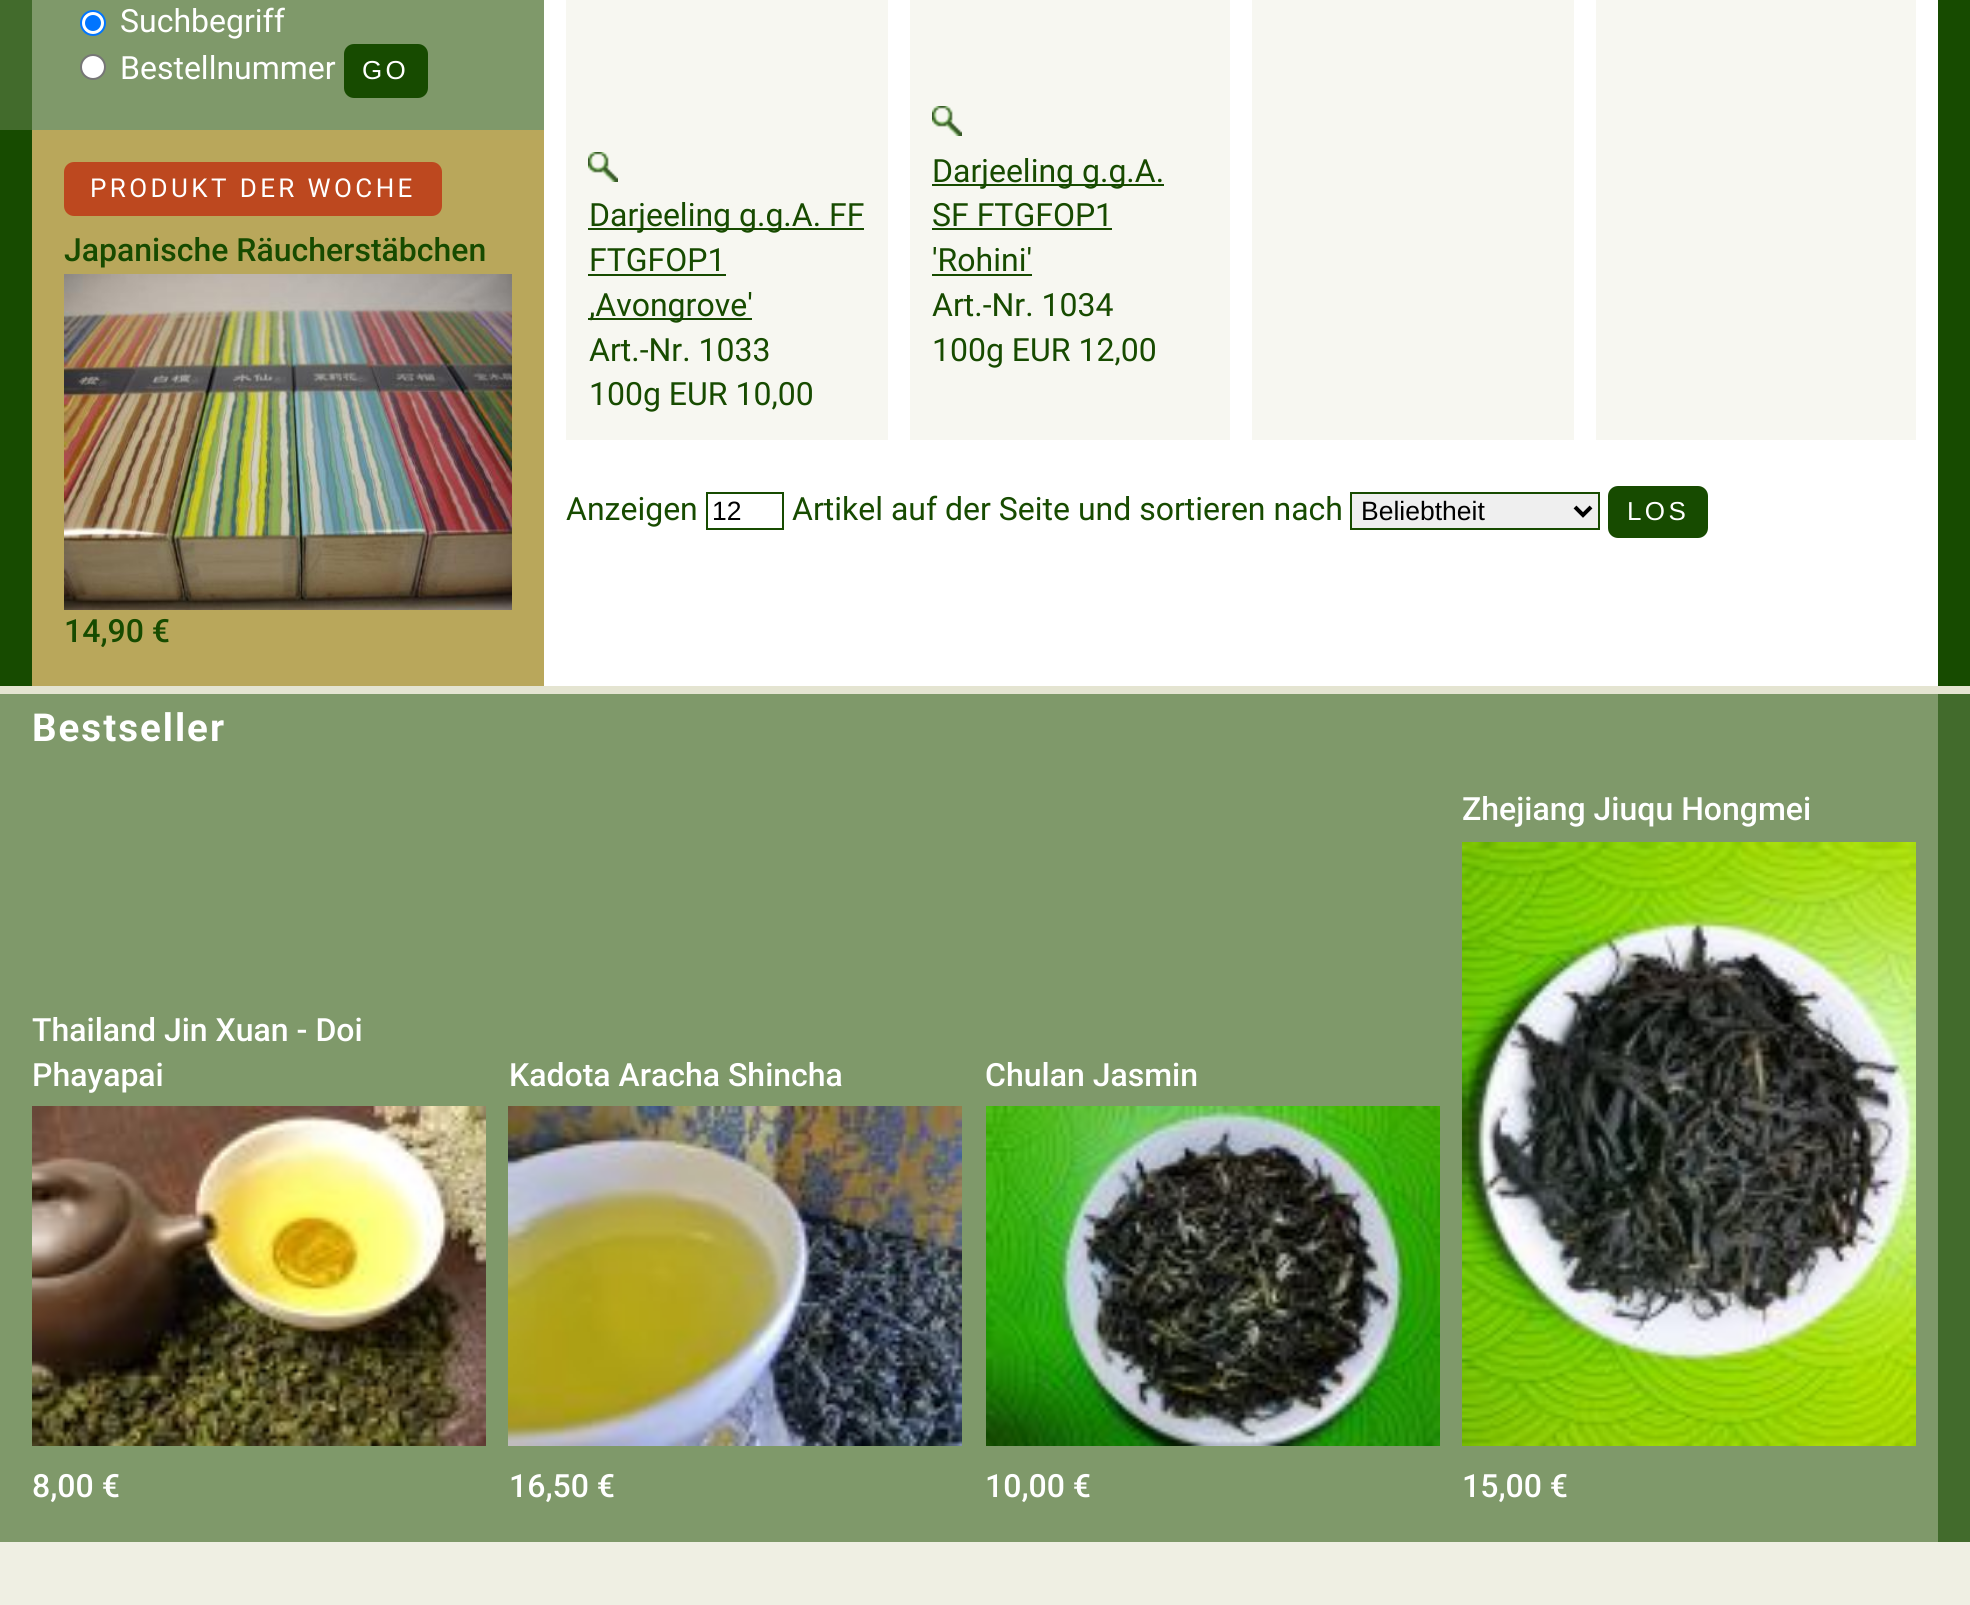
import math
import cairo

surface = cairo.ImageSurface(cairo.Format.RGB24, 1970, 1605)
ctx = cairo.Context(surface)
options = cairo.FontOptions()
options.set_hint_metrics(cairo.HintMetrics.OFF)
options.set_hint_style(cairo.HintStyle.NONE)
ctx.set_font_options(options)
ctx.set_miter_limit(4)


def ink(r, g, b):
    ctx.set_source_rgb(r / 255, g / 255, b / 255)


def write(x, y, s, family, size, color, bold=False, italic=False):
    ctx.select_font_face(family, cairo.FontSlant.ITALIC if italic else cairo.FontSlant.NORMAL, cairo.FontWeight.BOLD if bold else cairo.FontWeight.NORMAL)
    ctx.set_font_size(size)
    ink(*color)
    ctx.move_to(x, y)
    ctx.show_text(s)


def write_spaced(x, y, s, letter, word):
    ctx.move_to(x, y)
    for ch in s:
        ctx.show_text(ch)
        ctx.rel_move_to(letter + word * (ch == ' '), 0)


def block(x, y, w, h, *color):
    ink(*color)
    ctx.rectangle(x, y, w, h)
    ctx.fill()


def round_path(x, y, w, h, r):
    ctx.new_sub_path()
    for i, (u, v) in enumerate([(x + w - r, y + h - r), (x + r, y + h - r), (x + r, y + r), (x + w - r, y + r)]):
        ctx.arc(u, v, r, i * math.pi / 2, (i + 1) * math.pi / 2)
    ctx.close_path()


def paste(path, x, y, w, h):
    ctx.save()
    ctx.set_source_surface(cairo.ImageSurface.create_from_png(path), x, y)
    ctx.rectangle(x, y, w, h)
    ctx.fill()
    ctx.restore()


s1 = dict(family="Roboto", size=32, color=(255, 255, 255))
s2 = dict(family="Roboto Medium", size=32, color=(23, 75, 0))
s3 = dict(family="Roboto", size=32, color=(23, 75, 0))
s4 = dict(family="Liberation Sans", size=26.5, color=(0, 0, 0))
s5 = dict(family="Roboto Medium", size=32, color=(255, 255, 255))

ink(255, 255, 255)
ctx.paint()
block(0, 130, 32, 556, 23, 75, 0)
block(0, 0, 32, 130, 66, 107, 44)
block(32, 0, 512, 130, 127, 153, 106)
ink(255, 255, 255)
ctx.arc(93, 23, 12, 0, 2 * math.pi)
ctx.fill_preserve()
ink(0, 117, 255)
ctx.stroke()
ctx.arc(93, 23, 8, 0, 2 * math.pi)
ctx.fill()
write(120, 32, "Suchbegriff", **s1)
ctx.new_path()
ctx.arc(93, 67, 12, 0, 2 * math.pi)
ctx.fill_preserve()
ink(118, 118, 118)
ctx.stroke()
write(120, 79, "Bestellnummer", **s1)
ink(23, 75, 0)
round_path(344, 44, 84, 54, 10)
ctx.fill()
ctx.select_font_face("Liberation Sans")
ctx.set_font_size(26)
ink(255, 255, 255)
write_spaced(362, 79, "GO", 3.4, 0)
block(32, 130, 512, 556, 185, 167, 91)
ink(189, 72, 31)
round_path(64, 162, 378, 54, 10)
ctx.fill()
ctx.select_font_face("Roboto")
ink(255, 255, 255)
write_spaced(90, 197, "PRODUKT DER WOCHE", 3.4, 0)
write(64, 261, "Japanische Räucherstäbchen", **s2)
paste("pic1.png", 64, 274, 448, 336)
write(64, 642, "14,90 €", **s2)
block(1938, 0, 32, 686, 23, 75, 0)
block(566, 0, 322, 440, 247, 247, 241)
paste("pic2.png", 588, 152, 30, 30)
block(588, 228, 276, 2, 23, 75, 0)
write(589, 226, "Darjeeling g.g.A. FF", **s3)
write(589, 271, "FTGFOP1", **s3)
block(588, 274, 138, 2, 23, 75, 0)
block(588, 318, 164, 2, 23, 75, 0)
write(589, 316, ",Avongrove'", **s3)
write(589, 361, "Art.-Nr. 1033", **s3)
write(589, 405, "100g EUR 10,00", **s3)
block(910, 0, 320, 440, 247, 247, 241)
paste("pic2.png", 932, 106, 30, 30)
block(932, 184, 232, 2, 23, 75, 0)
write(932, 182, "Darjeeling g.g.A.", **s3)
write(932, 226, "SF FTGFOP1", **s3)
block(932, 228, 180, 2, 23, 75, 0)
write(932, 271, "'Rohini'", **s3)
block(932, 274, 100, 2, 23, 75, 0)
write(932, 316, "Art.-Nr. 1034", **s3)
write(932, 361, "100g EUR 12,00", **s3)
block(1252, 0, 322, 440, 247, 247, 241)
block(1596, 0, 320, 440, 247, 247, 241)
write(566, 520, "Anzeigen", **s3)
ctx.rectangle(707, 493, 76, 36)
ctx.stroke()
write(712, 520, "12", **s4)
write(792, 520, "Artikel auf der Seite und sortieren nach", **s3)
ink(239, 239, 239)
ctx.rectangle(1351, 493, 248, 36)
ctx.fill_preserve()
ink(23, 75, 0)
ctx.stroke()
ctx.new_path()
ctx.move_to(1575, 507)
ctx.line_to(1583, 515)
ctx.line_to(1591, 507)
ink(0, 0, 0)
ctx.set_line_width(4)
ctx.stroke()
write(1361, 520, "Beliebtheit", **s4)
ink(23, 75, 0)
round_path(1608, 486, 100, 52, 10)
ctx.fill()
ctx.set_font_size(26)
ink(255, 255, 255)
write_spaced(1627, 520, "LOS", 3.4, 0)
block(0, 694, 1938, 848, 127, 153, 106)
block(0, 686, 1970, 8, 228, 228, 209)
block(1938, 694, 32, 848, 66, 107, 44)
ctx.select_font_face("Roboto", cairo.FontSlant.NORMAL, cairo.FontWeight.BOLD)
ctx.set_font_size(38.5)
ink(255, 255, 255)
write_spaced(32, 741, "Bestseller", 2, 0)
write(32, 1041, "Thailand Jin Xuan - Doi", **s5)
write(32, 1086, "Phayapai", **s5)
paste("pic3.png", 32, 1106, 454, 340)
write(32, 1497, "8,00 €", **s5)
write(509, 1086, "Kadota Aracha Shincha", **s5)
paste("pic4.png", 508, 1106, 454, 340)
write(509, 1497, "16,50 €", **s5)
write(985, 1086, "Chulan Jasmin", **s5)
paste("pic5.png", 986, 1106, 454, 340)
write(985, 1497, "10,00 €", **s5)
write(1462, 820, "Zhejiang Jiuqu Hongmei", **s5)
paste("pic6.png", 1462, 842, 454, 604)
write(1462, 1497, "15,00 €", **s5)
block(0, 1542, 1970, 63, 239, 239, 227)
surface.write_to_png("screenshot.png")
